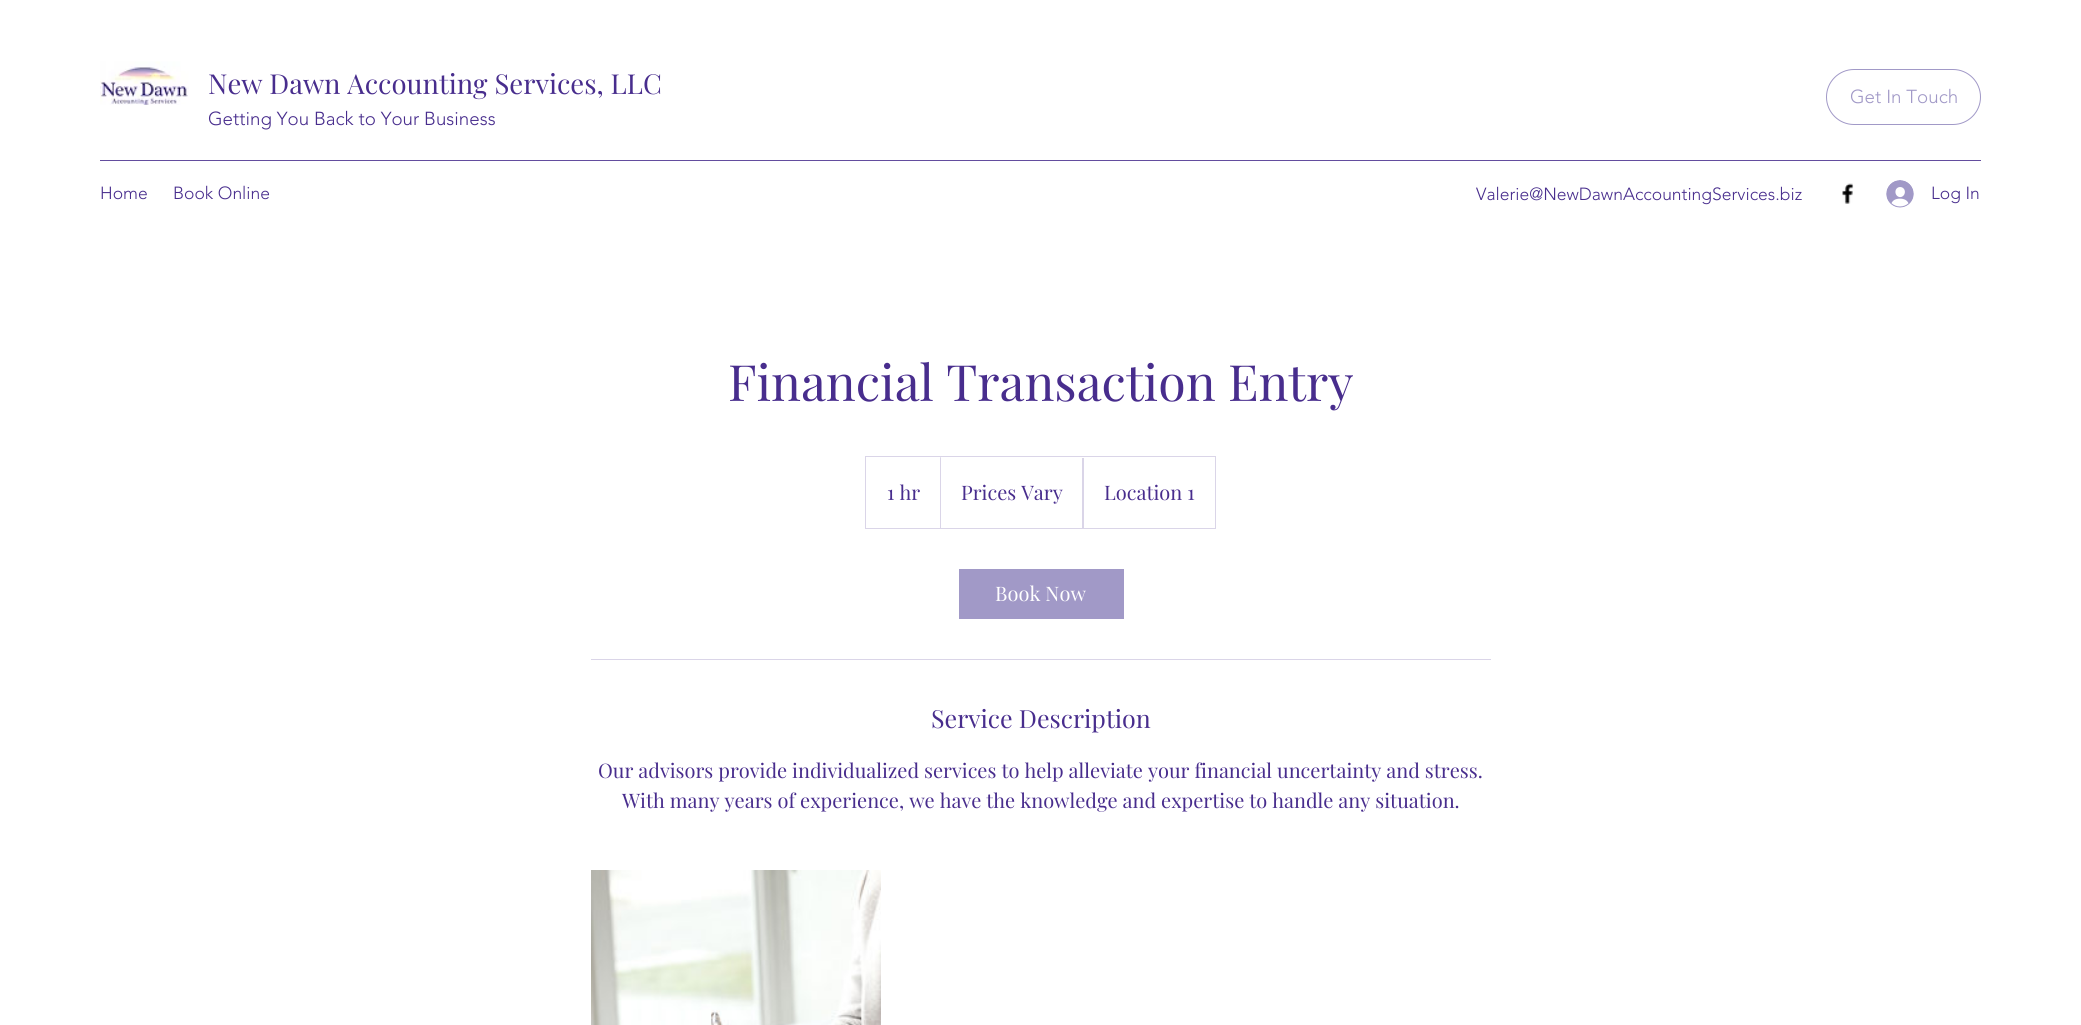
import math
import cairo

surface = cairo.ImageSurface(cairo.Format.RGB24, 2081, 1025)
ctx = cairo.Context(surface)
options = cairo.FontOptions()
options.set_hint_metrics(cairo.HintMetrics.OFF)
options.set_hint_style(cairo.HintStyle.NONE)
ctx.set_font_options(options)
ctx.set_miter_limit(4)


def ink(r, g, b):
    ctx.set_source_rgb(r / 255, g / 255, b / 255)


def write(x, y, s, family, size, color, bold=False, italic=False):
    ctx.select_font_face(family, cairo.FontSlant.ITALIC if italic else cairo.FontSlant.NORMAL, cairo.FontWeight.BOLD if bold else cairo.FontWeight.NORMAL)
    ctx.set_font_size(size)
    ink(*color)
    ctx.move_to(x, y)
    ctx.show_text(s)


def block(x, y, w, h, *color):
    ink(*color)
    ctx.rectangle(x, y, w, h)
    ctx.fill()


def round_path(x, y, w, h, r):
    ctx.new_sub_path()
    for i, (u, v) in enumerate([(x + w - r, y + h - r), (x + r, y + h - r), (x + r, y + r), (x + w - r, y + r)]):
        ctx.arc(u, v, r, i * math.pi / 2, (i + 1) * math.pi / 2)
    ctx.close_path()


def paste(path, x, y, w, h):
    ctx.save()
    ctx.set_source_surface(cairo.ImageSurface.create_from_png(path), x, y)
    ctx.rectangle(x, y, w, h)
    ctx.fill()
    ctx.restore()


s1 = dict(family="Playfair Display", size=27.5, color=(72, 45, 141))
s2 = dict(family="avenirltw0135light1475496 Light", size=18.75, color=(72, 45, 141))
s3 = dict(family="avenirltw0135light1475496 Light", size=18.75, color=(161, 153, 199))
s4 = dict(family="avenirltw0135light1475496 Light", size=17.5, color=(72, 45, 141))
s5 = dict(family="Playfair Display", size=50, color=(72, 45, 141))
s6 = dict(family="Playfair Display", size=20, color=(72, 45, 141))
s7 = dict(family="Playfair Display", size=20, color=(255, 255, 255))
s8 = dict(family="Playfair Display", size=25, color=(72, 45, 141))

ink(255, 255, 255)
ctx.paint()
paste("pic1.png", 100, 61, 89, 44)
write(208, 94, "New Dawn Accounting Services, LLC", **s1)
write(208, 125, "Getting You Back to Your Business", **s2)
round_path(1826.5, 69.5, 154, 55, 27.5)
ink(161, 153, 199)
ctx.set_line_width(1)
ctx.stroke()
write(1850, 103, "Get In Touch", **s3)
block(100, 160, 1881, 1, 99, 77, 158)
write(100, 199, "Home", **s4)
write(173, 199, "Book Online", **s4)
write(1476, 200, "Valerie@NewDawnAccountingServices.biz", **s4)
paste("pic2.png", 1842, 183, 12, 21)
paste("pic3.png", 1886, 180, 28, 28)
write(1931, 199, "Log In", **s4)
write(728, 401, "Financial Transaction Entry", **s5)
ctx.rectangle(865.5, 456.5, 350, 72)
ink(218, 213, 232)
ctx.stroke()
write(887, 500, "1 hr", **s6)
ink(218, 213, 232)
ctx.new_path()
ctx.move_to(940, 528)
ctx.line_to(940, 456)
ctx.line_to(941, 458)
ctx.line_to(941, 528)
ctx.close_path()
ctx.fill()
write(961, 500, "Prices Vary", **s6)
ctx.save()
ctx.rectangle(866, 458, 349, 70)
ctx.clip()
ink(218, 213, 232)
ctx.new_path()
ctx.move_to(1082, 528)
ctx.line_to(1082, 456)
ctx.line_to(1084, 458)
ctx.line_to(1084, 528)
ctx.close_path()
ctx.fill()
ctx.restore()
write(1104, 500, "Location 1", **s6)
block(959, 569, 165, 50, 161, 153, 199)
write(995, 601, "Book Now", **s7)
block(591, 659, 900, 1, 218, 213, 232)
write(931, 728, "Service Description", **s8)
write(598, 778, "Our advisors provide individualized services to help alleviate your financial uncertainty and stress.", **s6)
write(622, 808, "With many years of experience, we have the knowledge and expertise to handle any situation.", **s6)
paste("pic4.png", 591, 870, 290, 155)
surface.write_to_png("screenshot.png")
